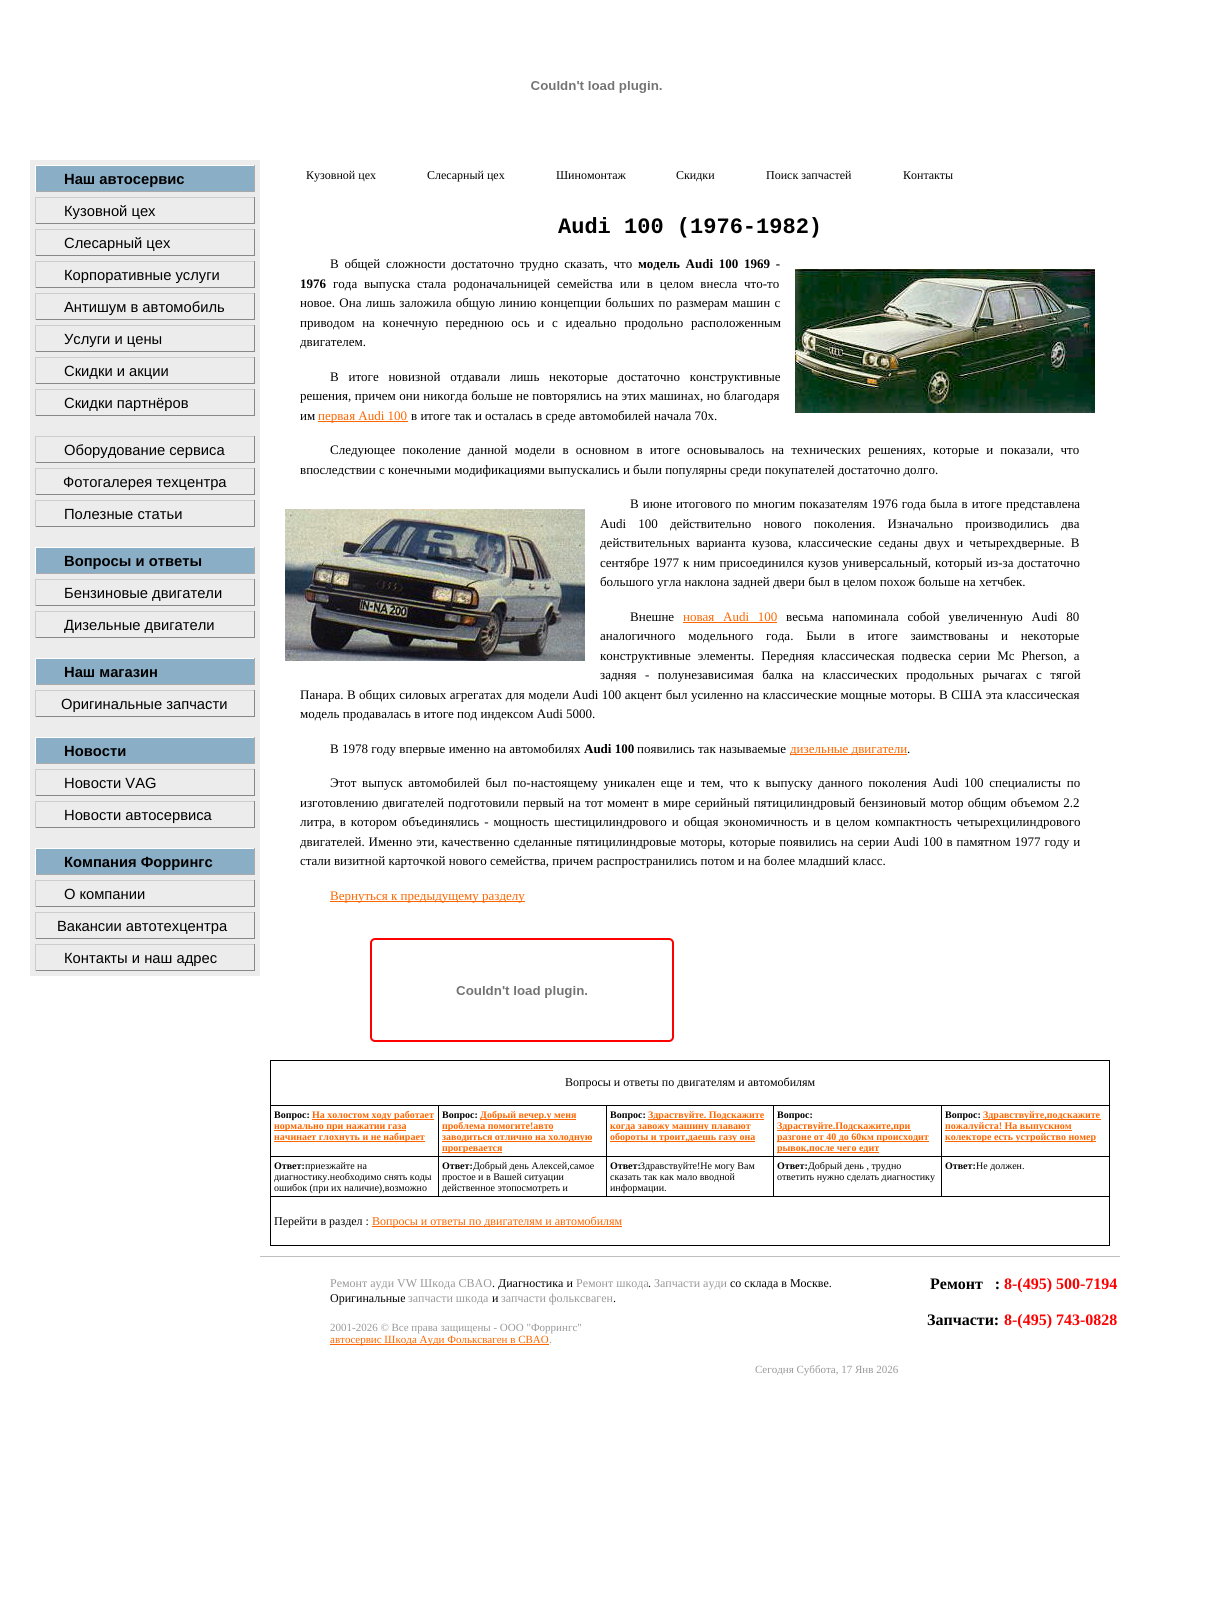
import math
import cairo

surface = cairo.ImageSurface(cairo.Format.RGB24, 1228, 1618)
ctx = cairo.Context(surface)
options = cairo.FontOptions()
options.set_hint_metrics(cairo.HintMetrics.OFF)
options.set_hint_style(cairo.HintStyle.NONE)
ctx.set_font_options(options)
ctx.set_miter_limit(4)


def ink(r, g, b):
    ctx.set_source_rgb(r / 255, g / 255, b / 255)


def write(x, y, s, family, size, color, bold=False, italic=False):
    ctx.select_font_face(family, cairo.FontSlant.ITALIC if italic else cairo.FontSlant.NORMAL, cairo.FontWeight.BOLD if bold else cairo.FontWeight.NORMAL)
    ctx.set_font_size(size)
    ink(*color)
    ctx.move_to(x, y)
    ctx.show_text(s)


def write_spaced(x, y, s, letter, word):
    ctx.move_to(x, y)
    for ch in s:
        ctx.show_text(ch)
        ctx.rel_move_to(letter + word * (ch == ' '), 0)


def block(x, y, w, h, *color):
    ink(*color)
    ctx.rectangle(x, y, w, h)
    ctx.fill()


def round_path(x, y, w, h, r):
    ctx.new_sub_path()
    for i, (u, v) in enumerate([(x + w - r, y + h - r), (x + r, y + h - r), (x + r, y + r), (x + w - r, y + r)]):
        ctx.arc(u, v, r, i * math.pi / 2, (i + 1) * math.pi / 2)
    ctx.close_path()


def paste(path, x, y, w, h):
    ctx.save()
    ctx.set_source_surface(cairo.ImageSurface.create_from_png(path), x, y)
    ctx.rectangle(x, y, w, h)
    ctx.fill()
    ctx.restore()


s1 = dict(family="Liberation Sans", size=14.75, color=(0, 0, 0), bold=True)
s2 = dict(family="Liberation Sans", size=14.75, color=(0, 0, 0))
s3 = dict(family="Liberation Serif", size=12, color=(0, 0, 0))
s4 = dict(family="Liberation Mono", size=22, color=(0, 0, 0), bold=True)
s5 = dict(family="Liberation Serif", size=13, color=(0, 0, 0), bold=True)
s6 = dict(family="Liberation Serif", size=13, color=(0, 0, 0))
s7 = dict(family="Liberation Serif", size=13, color=(255, 102, 0))
s8 = dict(family="Liberation Serif", size=10, color=(0, 0, 0), bold=True)
s9 = dict(family="Liberation Serif", size=10, color=(255, 102, 0), bold=True)
s10 = dict(family="Liberation Serif", size=10, color=(0, 0, 0))
s11 = dict(family="Liberation Serif", size=12, color=(255, 102, 0))
s12 = dict(family="Liberation Serif", size=12, color=(153, 153, 153))
s13 = dict(family="Liberation Serif", size=11, color=(153, 153, 153))
s14 = dict(family="Liberation Serif", size=11, color=(255, 102, 0))
s15 = dict(family="Liberation Serif", size=16, color=(0, 0, 0), bold=True)
s16 = dict(family="Liberation Serif", size=16, color=(255, 0, 0), bold=True)

ink(255, 255, 255)
ctx.paint()
paste("pic1.png", 531, 81, 131, 12)
block(30, 160, 230, 816, 236, 236, 236)
block(35, 165, 220, 1, 255, 255, 255)
block(254, 165, 1, 27, 170, 170, 170)
block(35, 191, 220, 1, 170, 170, 170)
block(35, 165, 1, 27, 255, 255, 255)
block(36, 166, 218, 25, 138, 174, 198)
write(64, 184, "Наш автосервис", **s1)
block(35, 197, 220, 1, 204, 204, 204)
block(254, 197, 1, 27, 136, 136, 136)
block(35, 223, 220, 1, 136, 136, 136)
block(35, 197, 1, 27, 204, 204, 204)
write(64, 216, "Кузовной цех", **s2)
block(35, 229, 220, 1, 204, 204, 204)
block(254, 229, 1, 27, 136, 136, 136)
block(35, 255, 220, 1, 136, 136, 136)
block(35, 229, 1, 27, 204, 204, 204)
write(64, 248, "Слесарный цех", **s2)
block(35, 261, 220, 1, 204, 204, 204)
block(254, 261, 1, 27, 136, 136, 136)
block(35, 287, 220, 1, 136, 136, 136)
block(35, 261, 1, 27, 204, 204, 204)
write(64, 280, "Корпоративные услуги", **s2)
block(35, 293, 220, 1, 204, 204, 204)
block(254, 293, 1, 27, 136, 136, 136)
block(35, 319, 220, 1, 136, 136, 136)
block(35, 293, 1, 27, 204, 204, 204)
write(64, 312, "Антишум в автомобиль", **s2)
block(35, 325, 220, 1, 204, 204, 204)
block(254, 325, 1, 27, 136, 136, 136)
block(35, 351, 220, 1, 136, 136, 136)
block(35, 325, 1, 27, 204, 204, 204)
write(64, 344, "Услуги и цены", **s2)
block(35, 357, 220, 1, 204, 204, 204)
block(254, 357, 1, 27, 136, 136, 136)
block(35, 383, 220, 1, 136, 136, 136)
block(35, 357, 1, 27, 204, 204, 204)
write(64, 376, "Скидки и акции", **s2)
block(35, 389, 220, 1, 204, 204, 204)
block(254, 389, 1, 27, 136, 136, 136)
block(35, 415, 220, 1, 136, 136, 136)
block(35, 389, 1, 27, 204, 204, 204)
write(64, 408, "Скидки партнёров", **s2)
block(35, 436, 220, 1, 204, 204, 204)
block(254, 436, 1, 27, 136, 136, 136)
block(35, 462, 220, 1, 136, 136, 136)
block(35, 436, 1, 27, 204, 204, 204)
write(64, 455, "Оборудование сервиса", **s2)
block(35, 468, 220, 1, 204, 204, 204)
block(254, 468, 1, 27, 136, 136, 136)
block(35, 494, 220, 1, 136, 136, 136)
block(35, 468, 1, 27, 204, 204, 204)
write(63, 487, "Фотогалерея техцентра", **s2)
block(35, 500, 220, 1, 204, 204, 204)
block(254, 500, 1, 27, 136, 136, 136)
block(35, 526, 220, 1, 136, 136, 136)
block(35, 500, 1, 27, 204, 204, 204)
write(64, 519, "Полезные статьи", **s2)
block(35, 547, 220, 1, 255, 255, 255)
block(254, 547, 1, 27, 170, 170, 170)
block(35, 573, 220, 1, 170, 170, 170)
block(35, 547, 1, 27, 255, 255, 255)
block(36, 548, 218, 25, 138, 174, 198)
write(64, 566, "Вопросы и ответы", **s1)
block(35, 579, 220, 1, 204, 204, 204)
block(254, 579, 1, 27, 136, 136, 136)
block(35, 605, 220, 1, 136, 136, 136)
block(35, 579, 1, 27, 204, 204, 204)
write(64, 598, "Бензиновые двигатели", **s2)
block(35, 611, 220, 1, 204, 204, 204)
block(254, 611, 1, 27, 136, 136, 136)
block(35, 637, 220, 1, 136, 136, 136)
block(35, 611, 1, 27, 204, 204, 204)
write(64, 630, "Дизельные двигатели", **s2)
block(35, 658, 220, 1, 255, 255, 255)
block(254, 658, 1, 27, 170, 170, 170)
block(35, 684, 220, 1, 170, 170, 170)
block(35, 658, 1, 27, 255, 255, 255)
block(36, 659, 218, 25, 138, 174, 198)
write(64, 677, "Наш магазин", **s1)
block(35, 690, 220, 1, 204, 204, 204)
block(254, 690, 1, 27, 136, 136, 136)
block(35, 716, 220, 1, 136, 136, 136)
block(35, 690, 1, 27, 204, 204, 204)
write(61, 709, "Оригинальные запчасти", **s2)
block(35, 737, 220, 1, 255, 255, 255)
block(254, 737, 1, 27, 170, 170, 170)
block(35, 763, 220, 1, 170, 170, 170)
block(35, 737, 1, 27, 255, 255, 255)
block(36, 738, 218, 25, 138, 174, 198)
write(64, 756, "Новости", **s1)
block(35, 769, 220, 1, 204, 204, 204)
block(254, 769, 1, 27, 136, 136, 136)
block(35, 795, 220, 1, 136, 136, 136)
block(35, 769, 1, 27, 204, 204, 204)
write(64, 788, "Новости VAG", **s2)
block(35, 801, 220, 1, 204, 204, 204)
block(254, 801, 1, 27, 136, 136, 136)
block(35, 827, 220, 1, 136, 136, 136)
block(35, 801, 1, 27, 204, 204, 204)
write(64, 820, "Новости автосервиса", **s2)
block(35, 848, 220, 1, 255, 255, 255)
block(254, 848, 1, 27, 170, 170, 170)
block(35, 874, 220, 1, 170, 170, 170)
block(35, 848, 1, 27, 255, 255, 255)
block(36, 849, 218, 25, 138, 174, 198)
write(64, 867, "Компания Форрингс", **s1)
block(35, 880, 220, 1, 204, 204, 204)
block(254, 880, 1, 27, 136, 136, 136)
block(35, 906, 220, 1, 136, 136, 136)
block(35, 880, 1, 27, 204, 204, 204)
write(64, 899, "О компании", **s2)
block(35, 912, 220, 1, 204, 204, 204)
block(254, 912, 1, 27, 136, 136, 136)
block(35, 938, 220, 1, 136, 136, 136)
block(35, 912, 1, 27, 204, 204, 204)
write(57, 931, "Вакансии автотехцентра", **s2)
block(35, 944, 220, 1, 204, 204, 204)
block(254, 944, 1, 27, 136, 136, 136)
block(35, 970, 220, 1, 136, 136, 136)
block(35, 944, 1, 27, 204, 204, 204)
write(64, 963, "Контакты и наш адрес", **s2)
write(306, 179, "Кузовной цех", **s3)
write(427, 179, "Слесарный цех", **s3)
write(556, 179, "Шиномонтаж", **s3)
write(676, 179, "Скидки", **s3)
write(766, 179, "Поиск запчастей", **s3)
write(903, 179, "Контакты", **s3)
write(558, 233, "Audi 100 (1976-1982)", **s4)
ctx.select_font_face("Liberation Serif")
ctx.set_font_size(13)
write_spaced(330, 268, "В общей сложности достаточно трудно сказать, что", 0, 2.5)
ctx.select_font_face("Liberation Serif", cairo.FontSlant.NORMAL, cairo.FontWeight.BOLD)
write_spaced(638, 268, "модель Audi 100 1969 -", 0, 2.5)
write(300, 288, "1976", **s5)
ctx.select_font_face("Liberation Serif")
write_spaced(333, 288, "года выпуска стала родоначальницей семейства или в целом внесла что-то", 0, 3.5)
write_spaced(300, 307, "новое. Она лишь заложила общую линию концепции больших по размерам машин с", 0, 1)
write_spaced(300, 327, "приводом на конечную переднюю ось и с идеально продольно расположенным", 0, 4.5)
write(300, 346, "двигателем.", **s6)
paste("pic2.png", 795, 269, 300, 144)
write_spaced(330, 381, "В итоге новизной отдавали лишь некоторые достаточно конструктивные", 0, 6.5)
write_spaced(300, 400, "решения, причем они никогда больше не повторялись на этих машинах, но благодаря", 0, 0.3)
write(300, 420, "им", **s6)
block(318, 421, 90, 1, 255, 102, 0)
write(318, 420, "первая Audi 100", **s7)
write(411, 420, "в итоге так и осталась в среде автомобилей начала 70х.", **s6)
write_spaced(330, 454, "Следующее поколение данной модели в основном в итоге основывалось на технических решениях, которые и показали, что", 0, 3.9)
write(300, 474, "впоследствии с конечными модификациями выпускались и были популярны среди покупателей достаточно долго.", **s6)
paste("pic3.png", 285, 509, 300, 152)
write_spaced(630, 508, "В июне итогового по многим показателям 1976 года была в итоге представлена", 0, 0.75)
write_spaced(600, 528, "Audi 100 действительно нового поколения. Изначально производились два", 0, 9)
write_spaced(600, 547, "действительных варианта кузова, классические седаны двух и четырехдверные. В", 0, 3)
write_spaced(600, 567, "сентябре 1977 к ним присоединился кузов универсальный, который из-за достаточно", 0, 0.75)
write(600, 586, "большого угла наклона задней двери был в целом похож больше на хетчбек.", **s6)
write(630, 621, "Внешне", **s6)
ink(255, 102, 0)
write_spaced(683, 621, "новая Audi 100", 0, 5.5)
block(683, 622, 94, 1, 255, 102, 0)
ink(0, 0, 0)
write_spaced(786, 621, "весьма напоминала собой увеличенную Audi 80", 0, 5.5)
write_spaced(600, 640, "аналогичного модельного года. Были в итоге заимствованы и некоторые", 0, 9.5)
write_spaced(600, 660, "конструктивные элементы. Передняя классическая подвеска серии Mc Pherson, а", 0, 3.75)
write_spaced(600, 679, "задняя - полунезависимая балка на классических продольных рычагах с тягой", 0, 5.25)
write_spaced(300, 699, "Панара. В общих силовых агрегатах для модели Audi 100 акцент был усиленно на классические мощные моторы. В США эта классическая", 0, 0.25)
write(300, 718, "модель продавалась в итоге под индексом Audi 5000.", **s6)
write(330, 753, "В 1978 году впервые именно на автомобилях", **s6)
write(584, 753, "Audi 100", **s5)
write(637, 753, "появились так называемые", **s6)
block(790, 754, 117, 1, 255, 102, 0)
write(790, 753, "дизельные двигатели", **s7)
write(907, 753, ".", **s6)
write_spaced(330, 787, "Этот выпуск автомобилей был по-настоящему уникален еще и тем, что к выпуску данного поколения Audi 100 специалисты по", 0, 2.4)
write_spaced(300, 807, "изготовлению двигателей подготовили первый", 0, 1)
write_spaced(568, 807, "на тот момент в мире серийный пятицилиндровый бензиновый мотор общим объемом 2.2", 0, 1)
write_spaced(300, 826, "литра, в котором объединялись - мощность шестицилиндрового и общая экономичность и в целом компактность четырехцилиндрового", 0, 1.75)
write_spaced(300, 846, "двигателей. Именно эти, качественно сделанные пятицилиндровые моторы, которые появились на серии Audi 100 в памятном 1977 году и", 0, 0.6)
write(300, 865, "стали визитной карточкой нового семейства, причем распространились потом и на более младший класс.", **s6)
block(330, 901, 195, 1, 255, 102, 0)
write(330, 900, "Вернуться к предыдущему разделу", **s7)
round_path(371, 939, 302, 102, 4)
ink(255, 0, 0)
ctx.stroke()
paste("pic4.png", 456, 986, 131, 12)
block(270, 1060, 840, 1, 0, 0, 0)
block(1109, 1060, 1, 186, 0, 0, 0)
block(270, 1245, 840, 1, 0, 0, 0)
block(270, 1060, 1, 186, 0, 0, 0)
write(565, 1086, "Вопросы и ответы по двигателям и автомобилям", **s3)
block(941, 1105, 169, 1, 0, 0, 0)
block(941, 1156, 169, 1, 0, 0, 0)
block(270, 1196, 840, 1, 0, 0, 0)
block(941, 1156, 1, 41, 0, 0, 0)
block(773, 1156, 169, 1, 0, 0, 0)
block(941, 1105, 1, 52, 0, 0, 0)
block(773, 1105, 169, 1, 0, 0, 0)
block(773, 1156, 1, 41, 0, 0, 0)
block(606, 1156, 168, 1, 0, 0, 0)
block(773, 1105, 1, 52, 0, 0, 0)
block(606, 1105, 168, 1, 0, 0, 0)
block(606, 1156, 1, 41, 0, 0, 0)
block(438, 1156, 169, 1, 0, 0, 0)
block(606, 1105, 1, 52, 0, 0, 0)
block(438, 1105, 169, 1, 0, 0, 0)
block(438, 1156, 1, 41, 0, 0, 0)
block(270, 1156, 169, 1, 0, 0, 0)
block(438, 1105, 1, 52, 0, 0, 0)
block(270, 1105, 169, 1, 0, 0, 0)
write(274, 1118, "Вопрос:", **s8)
block(312, 1119, 122, 1, 255, 102, 0)
write(312, 1118, "На холостом ходу работает", **s9)
block(274, 1130, 132, 1, 255, 102, 0)
write(274, 1129, "нормально при нажатии газа", **s9)
block(274, 1141, 151, 1, 255, 102, 0)
write(274, 1140, "начинает глохнуть и не набирает", **s9)
write(442, 1118, "Вопрос:", **s8)
block(480, 1119, 96, 1, 255, 102, 0)
write(480, 1118, "Добрый вечер.у меня", **s9)
block(442, 1130, 111, 1, 255, 102, 0)
write(442, 1129, "проблема помогите!авто", **s9)
block(442, 1141, 150, 1, 255, 102, 0)
write(442, 1140, "заводиться отлично на холодную", **s9)
block(442, 1152, 60, 1, 255, 102, 0)
write(442, 1151, "прогревается", **s9)
write(610, 1118, "Вопрос:", **s8)
block(648, 1119, 116, 1, 255, 102, 0)
write(648, 1118, "Здраствуйте. Подскажите", **s9)
block(610, 1130, 140, 1, 255, 102, 0)
write(610, 1129, "когда завожу машину плавают", **s9)
block(610, 1141, 145, 1, 255, 102, 0)
write(610, 1140, "обороты и троит,даешь газу она", **s9)
write(777, 1118, "Вопрос:", **s8)
block(777, 1130, 134, 1, 255, 102, 0)
write(777, 1129, "Здраствуйте.Подскажите,при", **s9)
block(777, 1141, 152, 1, 255, 102, 0)
write(777, 1140, "разгоне от 40 до 60км происходит", **s9)
block(777, 1152, 102, 1, 255, 102, 0)
write(777, 1151, "рывок,после чего едит", **s9)
write(945, 1118, "Вопрос:", **s8)
block(983, 1119, 118, 1, 255, 102, 0)
write(983, 1118, "Здравствуйте,подскажите", **s9)
block(945, 1130, 127, 1, 255, 102, 0)
write(945, 1129, "пожалуйста! На выпускном", **s9)
block(945, 1141, 151, 1, 255, 102, 0)
write(945, 1140, "колекторе есть устройство номер", **s9)
write(274, 1169, "Ответ:", **s8)
write(305, 1169, "приезжайте на", **s10)
write(274, 1180, "диагностику.необходимо снять коды", **s10)
write(274, 1191, "ошибок (при их наличие),возможно", **s10)
write(442, 1169, "Ответ:", **s8)
write(473, 1169, "Добрый день Алексей,самое", **s10)
write(442, 1180, "простое и в Вашей ситуации", **s10)
write(442, 1191, "действенное этопосмотреть и", **s10)
write(610, 1169, "Ответ:", **s8)
write(640, 1169, "Здравствуйте!Не могу Вам", **s10)
write(610, 1180, "сказать так как мало вводной", **s10)
write(610, 1191, "информации.", **s10)
write(777, 1169, "Ответ:", **s8)
write(808, 1169, "Добрый день , трудно", **s10)
write(777, 1180, "ответить нужно сделать диагностику", **s10)
write(945, 1169, "Ответ:", **s8)
write(976, 1169, "Не должен.", **s10)
write(274, 1225, "Перейти в раздел :", **s3)
block(372, 1226, 250, 1, 255, 102, 0)
write(372, 1225, "Вопросы и ответы по двигателям и автомобилям", **s11)
block(260, 1256, 860, 1, 191, 191, 191)
write(330, 1287, "Ремонт ауди VW Шкода СВАО", **s12)
write(492, 1287, ". Диагностика и", **s3)
write(576, 1287, "Ремонт шкода", **s12)
write(648, 1287, ".", **s3)
write(654, 1287, "Запчасти ауди", **s12)
write(730, 1287, "со склада в Москве.", **s3)
write(330, 1302, "Оригинальные", **s3)
write(408, 1302, "запчасти шкода", **s12)
write(492, 1302, "и", **s3)
write(501, 1302, "запчасти фольксваген", **s12)
write(613, 1302, ".", **s3)
write(330, 1331, "2001-2026 © Все права защищены - ООО \"Форрингс\"", **s13)
block(330, 1344, 219, 1, 255, 102, 0)
write(330, 1343, "автосервис Шкода Ауди Фольксваген в СВАО", **s14)
write(549, 1343, ".", **s13)
write(930, 1289, "Ремонт   :", **s15)
write(1004, 1289, "8-(495) 500-7194", **s16)
write(927, 1325, "Запчасти:", **s15)
write(1004, 1325, "8-(495) 743-0828", **s16)
write(755, 1373, "Сегодня Суббота, 17 Янв 2026", **s13)
surface.write_to_png("screenshot.png")
